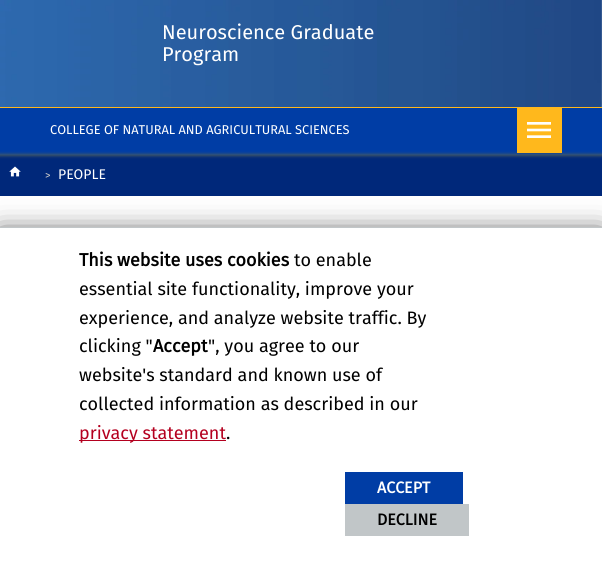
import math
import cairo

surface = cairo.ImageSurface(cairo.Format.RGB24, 602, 561)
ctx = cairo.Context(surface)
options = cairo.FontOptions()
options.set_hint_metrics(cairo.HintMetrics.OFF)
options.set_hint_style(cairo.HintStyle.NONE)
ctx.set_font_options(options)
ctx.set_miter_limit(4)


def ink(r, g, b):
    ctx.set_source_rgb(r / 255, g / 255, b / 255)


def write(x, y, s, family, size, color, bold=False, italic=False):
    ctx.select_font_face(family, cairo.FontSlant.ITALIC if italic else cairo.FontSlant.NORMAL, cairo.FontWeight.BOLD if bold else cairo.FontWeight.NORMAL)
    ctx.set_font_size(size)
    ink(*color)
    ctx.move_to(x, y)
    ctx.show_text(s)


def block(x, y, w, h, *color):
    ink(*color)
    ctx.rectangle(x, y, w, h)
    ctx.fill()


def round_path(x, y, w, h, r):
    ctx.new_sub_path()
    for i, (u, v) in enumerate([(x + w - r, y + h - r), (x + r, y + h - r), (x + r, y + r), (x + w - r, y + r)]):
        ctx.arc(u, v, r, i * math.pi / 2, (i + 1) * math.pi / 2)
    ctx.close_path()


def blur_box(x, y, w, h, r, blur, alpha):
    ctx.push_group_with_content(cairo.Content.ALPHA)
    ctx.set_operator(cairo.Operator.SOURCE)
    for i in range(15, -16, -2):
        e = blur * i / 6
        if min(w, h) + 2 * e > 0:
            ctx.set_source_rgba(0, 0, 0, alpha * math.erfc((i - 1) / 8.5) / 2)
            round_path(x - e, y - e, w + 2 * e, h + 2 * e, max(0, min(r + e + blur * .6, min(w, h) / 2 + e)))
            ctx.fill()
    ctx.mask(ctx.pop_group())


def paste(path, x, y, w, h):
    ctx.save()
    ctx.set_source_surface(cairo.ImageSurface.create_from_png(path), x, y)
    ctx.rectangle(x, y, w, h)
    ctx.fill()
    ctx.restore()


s1 = dict(family="Fira Sans", size=20, color=(255, 255, 255))
s2 = dict(family="Fira Sans", size=12.8, color=(255, 255, 255))
s3 = dict(family="Fira Sans", size=11, color=(202, 202, 202))
s4 = dict(family="Fira Sans", size=14, color=(255, 255, 255))
s5 = dict(family="Fira Sans", size=18, color=(0, 0, 0), bold=True)
s6 = dict(family="Fira Sans", size=18, color=(0, 0, 0))
s7 = dict(family="Fira Sans", size=18, color=(180, 0, 31))
s8 = dict(family="Fira Sans", size=16, color=(255, 255, 255), bold=True)
s9 = dict(family="Fira Sans", size=16, color=(0, 0, 0), bold=True)

ink(255, 255, 255)
ctx.paint()
paste("pic1.png", 0, 0, 602, 107)
block(0, 107, 602, 1, 255, 184, 28)
write(162, 39, "Neuroscience Graduate", **s1)
write(162, 61, "Program", **s1)
block(0, 108, 602, 47, 0, 61, 165)
write(50, 134, "COLLEGE OF NATURAL AND AGRICULTURAL SCIENCES", **s2)
block(0, 155, 602, 41, 0, 40, 122)
ink(69, 90, 100)
blur_box(-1, 154, 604, 2, 0, 1.5, 1)
block(517, 108, 45, 45, 255, 184, 28)
paste("pic2.png", 527, 122, 24, 16)
paste("pic3.png", 9, 166, 12, 11)
write(45, 179, ">", **s3)
write(58, 179, "PEOPLE", **s4)
ink(2, 2, 3)
blur_box(0, 237, 602, 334, 0, 15, 1)
block(0, 228, 602, 333, 255, 255, 255)
block(0, 227, 602, 1, 193, 198, 200)
write(79, 266, "This website uses cookies", **s5)
write(294, 266, "to enable", **s6)
write(79, 295, "essential site functionality, improve your", **s6)
write(79, 324, "experience, and analyze website traffic. By", **s6)
write(79, 352, "clicking \"", **s6)
write(153, 352, "Accept", **s5)
write(208, 352, "\", you agree to our", **s6)
write(79, 381, "website's standard and known use of", **s6)
write(79, 410, "collected information as described in our", **s6)
block(79, 440, 147, 1, 180, 0, 31)
write(79, 439, "privacy statement", **s7)
write(226, 439, ".", **s6)
block(345, 472, 118, 32, 0, 61, 165)
write(377, 493, "ACCEPT", **s8)
block(345, 504, 124, 32, 193, 198, 200)
write(377, 525, "DECLINE", **s9)
surface.write_to_png("screenshot.png")
